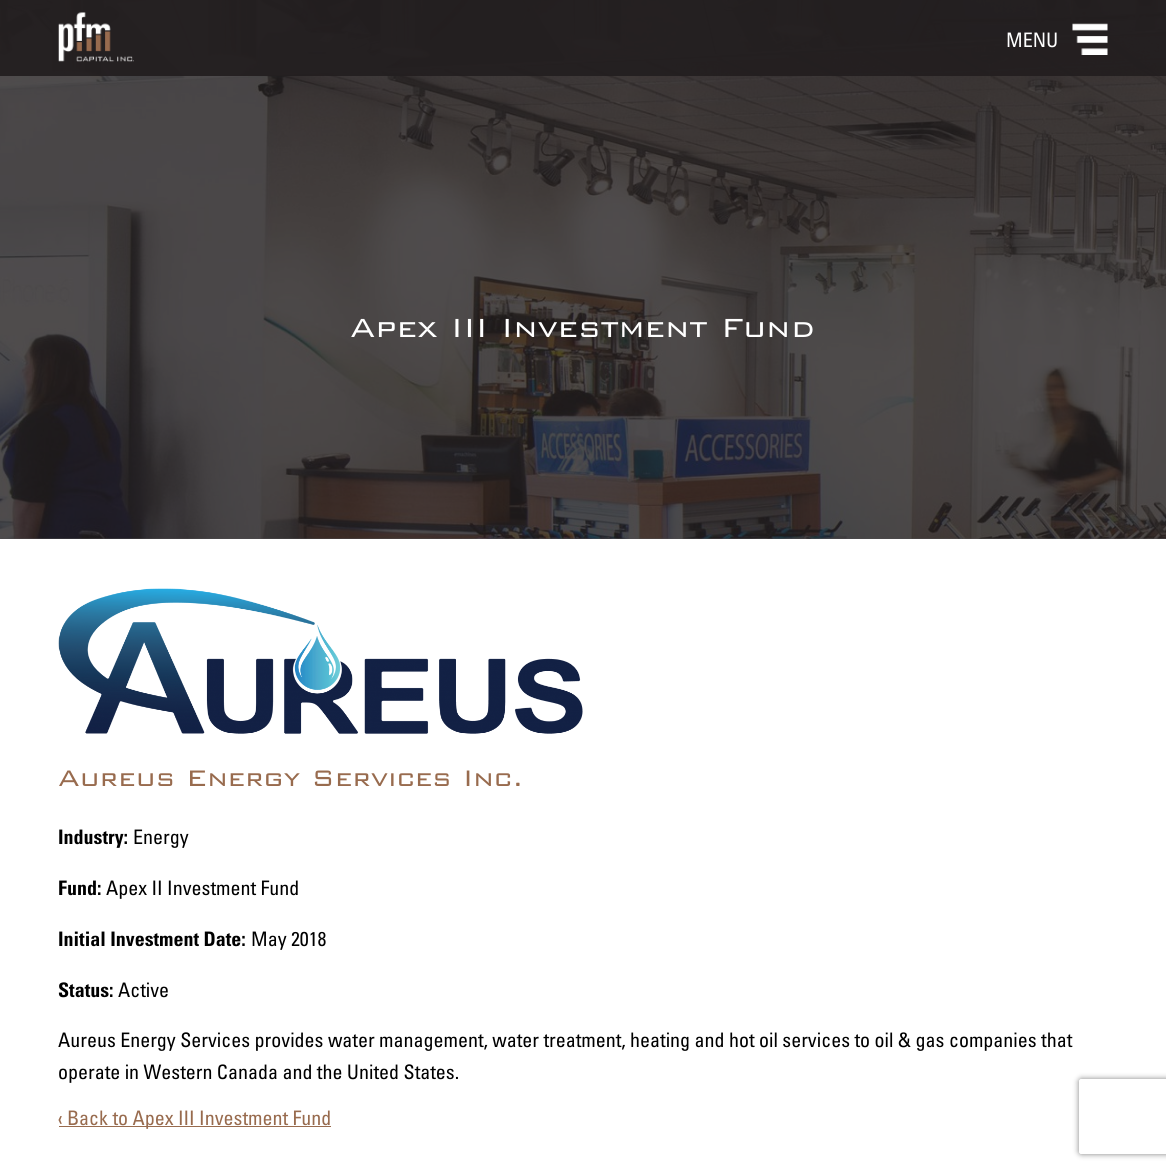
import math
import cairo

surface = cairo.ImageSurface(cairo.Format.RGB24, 1166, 1171)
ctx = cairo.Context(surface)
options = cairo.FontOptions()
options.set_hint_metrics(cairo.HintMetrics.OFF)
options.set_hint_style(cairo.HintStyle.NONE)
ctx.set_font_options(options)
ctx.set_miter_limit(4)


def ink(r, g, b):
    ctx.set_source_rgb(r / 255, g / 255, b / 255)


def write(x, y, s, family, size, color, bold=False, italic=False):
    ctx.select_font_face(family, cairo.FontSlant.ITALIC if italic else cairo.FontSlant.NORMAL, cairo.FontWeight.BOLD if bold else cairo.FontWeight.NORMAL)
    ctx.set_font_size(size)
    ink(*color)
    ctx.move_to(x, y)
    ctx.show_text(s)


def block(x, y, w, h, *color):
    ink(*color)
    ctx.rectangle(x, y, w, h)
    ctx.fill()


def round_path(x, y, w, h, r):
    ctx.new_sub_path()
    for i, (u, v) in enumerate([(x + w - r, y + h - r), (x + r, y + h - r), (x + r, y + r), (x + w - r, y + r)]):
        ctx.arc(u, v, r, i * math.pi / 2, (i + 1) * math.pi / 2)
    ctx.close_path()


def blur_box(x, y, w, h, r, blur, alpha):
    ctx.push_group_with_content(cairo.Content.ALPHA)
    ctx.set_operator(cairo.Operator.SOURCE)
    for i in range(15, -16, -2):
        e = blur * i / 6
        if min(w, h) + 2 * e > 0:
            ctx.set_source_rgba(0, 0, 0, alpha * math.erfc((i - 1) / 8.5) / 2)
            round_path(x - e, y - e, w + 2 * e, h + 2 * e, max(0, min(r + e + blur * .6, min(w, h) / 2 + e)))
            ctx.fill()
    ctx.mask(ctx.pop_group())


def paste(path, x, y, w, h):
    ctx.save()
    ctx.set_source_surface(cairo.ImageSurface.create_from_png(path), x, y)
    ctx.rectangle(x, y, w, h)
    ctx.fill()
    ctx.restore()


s1 = dict(family="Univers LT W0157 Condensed", size=20, color=(255, 255, 255))
s2 = dict(family="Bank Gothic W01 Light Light", size=35, color=(255, 255, 255))
s3 = dict(family="Bank Gothic W01 Light Light", size=30, color=(152, 107, 78))
s4 = dict(family="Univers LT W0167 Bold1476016", size=20, color=(0, 0, 0), bold=True)
s5 = dict(family="Univers LT W0157 Condensed", size=20, color=(0, 0, 0))
s6 = dict(family="Univers LT W0157 Condensed", size=20, color=(152, 107, 78))

ink(255, 255, 255)
ctx.paint()
block(0, 538, 1166, 1, 79, 76, 77)
paste("pic3.png", 0, 0, 1166, 539)
ctx.set_source_rgba(0.137, 0.122, 0.125, 0.95)
ctx.rectangle(0, 0, 1166, 76)
ctx.fill()
paste("pic1.png", 58, 12, 76, 50)
paste("pic2.png", 1072, 23, 36, 32)
write(1006, 47, "MENU", **s1)
write(350, 337, "Apex III Investment Fund", **s2)
paste("pic4.png", 58, 588, 525, 146)
write(58, 786, "Aureus Energy Services Inc.", **s3)
write(58, 844, "Industry:", **s4)
write(133, 844, "Energy", **s5)
write(58, 895, "Fund:", **s4)
write(106, 895, "Apex II Investment Fund", **s5)
write(58, 946, "Initial Investment Date:", **s4)
write(251, 946, "May 2018", **s5)
write(58, 997, "Status:", **s4)
write(118, 997, "Active", **s5)
write(58, 1047, "Aureus Energy Services provides water management, water treatment, heating and hot oil services to oil & gas companies that", **s5)
write(58, 1079, "operate in Western Canada and the United States.", **s5)
block(59, 1126, 272, 1, 152, 107, 78)
write(58, 1125, "‹ Back to Apex III Investment Fund", **s6)
ctx.save()
ctx.set_fill_rule(cairo.FillRule.EVEN_ODD)
ctx.new_path()
ctx.move_to(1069, 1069)
ctx.line_to(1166, 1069)
ctx.line_to(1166, 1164)
ctx.line_to(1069, 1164)
ctx.close_path()
ctx.move_to(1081.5, 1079)
ctx.line_to(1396.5, 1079)
ctx.curve_to(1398, 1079, 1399, 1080, 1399, 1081.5)
ctx.line_to(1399, 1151.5)
ctx.curve_to(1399, 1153, 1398, 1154, 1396.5, 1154)
ctx.line_to(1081.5, 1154)
ctx.curve_to(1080, 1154, 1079, 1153, 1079, 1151.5)
ctx.line_to(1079, 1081.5)
ctx.curve_to(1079, 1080, 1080, 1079, 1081.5, 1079)
ctx.close_path()
ctx.clip()
ink(128, 128, 128)
blur_box(1079, 1079, 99, 75, 2.5, 3, 1)
ctx.restore()
surface.write_to_png("screenshot.png")
